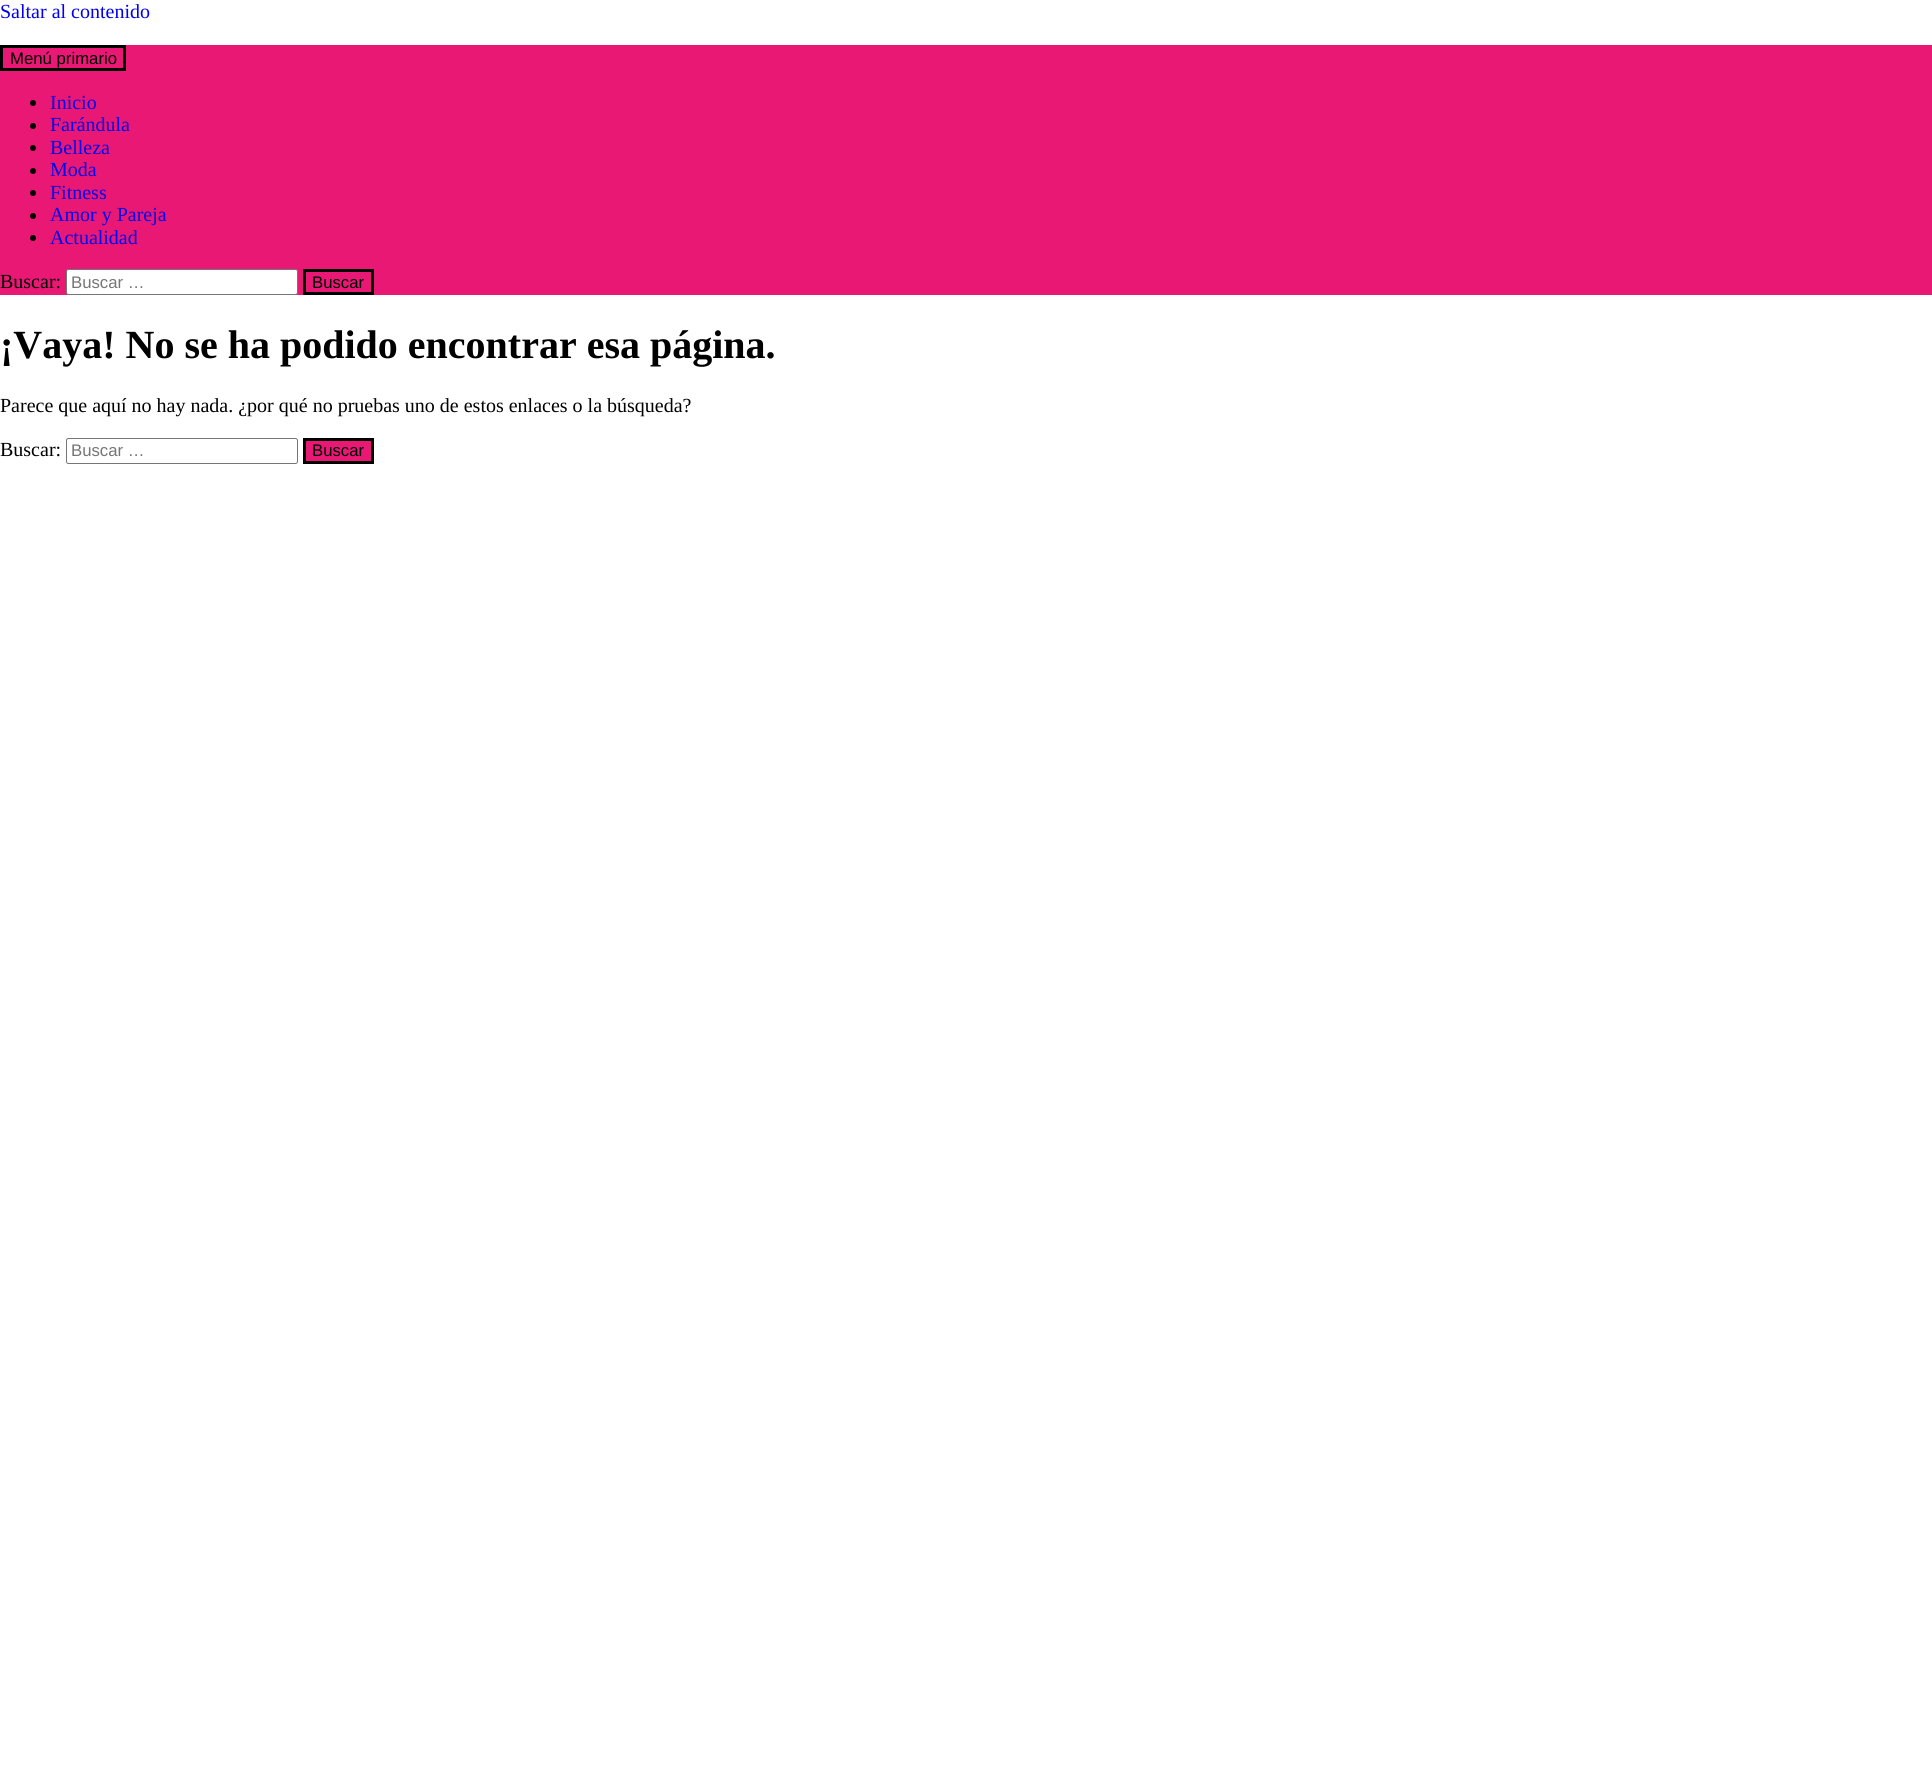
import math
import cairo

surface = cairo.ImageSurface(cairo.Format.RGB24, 1932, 1792)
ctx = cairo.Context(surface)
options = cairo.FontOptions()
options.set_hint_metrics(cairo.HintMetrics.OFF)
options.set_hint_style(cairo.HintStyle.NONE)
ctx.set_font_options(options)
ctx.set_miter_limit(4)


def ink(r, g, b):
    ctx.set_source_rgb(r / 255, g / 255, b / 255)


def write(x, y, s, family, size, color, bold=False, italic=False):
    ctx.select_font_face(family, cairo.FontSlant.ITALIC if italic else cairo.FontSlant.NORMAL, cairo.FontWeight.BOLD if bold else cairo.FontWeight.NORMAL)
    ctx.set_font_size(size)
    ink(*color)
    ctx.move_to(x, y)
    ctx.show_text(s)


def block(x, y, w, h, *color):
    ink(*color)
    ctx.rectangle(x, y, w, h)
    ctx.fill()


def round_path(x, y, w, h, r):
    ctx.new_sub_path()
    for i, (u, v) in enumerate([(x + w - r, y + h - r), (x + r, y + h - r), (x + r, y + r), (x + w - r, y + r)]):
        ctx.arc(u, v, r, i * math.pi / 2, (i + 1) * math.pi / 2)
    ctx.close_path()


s1 = dict(family="Liberation Serif", size=20, color=(0, 0, 238))
s2 = dict(family="Liberation Sans", size=16.75, color=(0, 0, 0))
s3 = dict(family="Liberation Serif", size=20, color=(0, 0, 0))
s4 = dict(family="Liberation Sans", size=16.75, color=(117, 117, 117))
s5 = dict(family="Liberation Serif", size=40, color=(0, 0, 0), bold=True)

ink(255, 255, 255)
ctx.paint()
write(0, 18, "Saltar al contenido", **s1)
block(0, 45, 1932, 250, 234, 24, 117)
ctx.rectangle(1.5, 46.5, 123, 23)
ink(0, 0, 0)
ctx.set_line_width(3)
ctx.stroke()
write(10, 64, "Menú primario", **s2)
ctx.new_path()
ctx.arc(33, 103, 3, 0, 2 * math.pi)
ctx.fill()
write(50, 109, "Inicio", **s1)
ink(0, 0, 0)
ctx.new_path()
ctx.arc(33, 126, 3, 0, 2 * math.pi)
ctx.fill()
write(50, 131, "Farándula", **s1)
ink(0, 0, 0)
ctx.new_path()
ctx.arc(33, 148, 3, 0, 2 * math.pi)
ctx.fill()
write(50, 154, "Belleza", **s1)
ink(0, 0, 0)
ctx.new_path()
ctx.arc(33, 171, 3, 0, 2 * math.pi)
ctx.fill()
write(50, 176, "Moda", **s1)
ink(0, 0, 0)
ctx.new_path()
ctx.arc(33, 193, 3, 0, 2 * math.pi)
ctx.fill()
write(50, 199, "Fitness", **s1)
ink(0, 0, 0)
ctx.new_path()
ctx.arc(33, 216, 3, 0, 2 * math.pi)
ctx.fill()
write(50, 221, "Amor y Pareja", **s1)
ink(0, 0, 0)
ctx.new_path()
ctx.arc(33, 238, 3, 0, 2 * math.pi)
ctx.fill()
write(50, 244, "Actualidad", **s1)
write(0, 288, "Buscar:", **s3)
ink(255, 255, 255)
round_path(66.5, 269.5, 231, 25, 2)
ctx.fill_preserve()
ink(118, 118, 118)
ctx.set_line_width(1)
ctx.stroke()
write(71, 288, "Buscar …", **s4)
ctx.rectangle(304.5, 270.5, 68, 23)
ink(0, 0, 0)
ctx.set_line_width(3)
ctx.stroke()
write(312, 288, "Buscar", **s2)
write(0, 358, "¡Vaya! No se ha podido encontrar esa página.", **s5)
write(0, 412, "Parece que aquí no hay nada. ¿por qué no pruebas uno de estos enlaces o la búsqueda?", **s3)
write(0, 456, "Buscar:", **s3)
round_path(66.5, 438.5, 231, 25, 2)
ink(118, 118, 118)
ctx.set_line_width(1)
ctx.stroke()
write(71, 456, "Buscar …", **s4)
ink(234, 24, 117)
ctx.rectangle(304.5, 439.5, 68, 23)
ctx.fill_preserve()
ink(0, 0, 0)
ctx.set_line_width(3)
ctx.stroke()
write(312, 456, "Buscar", **s2)
surface.write_to_png("screenshot.png")
